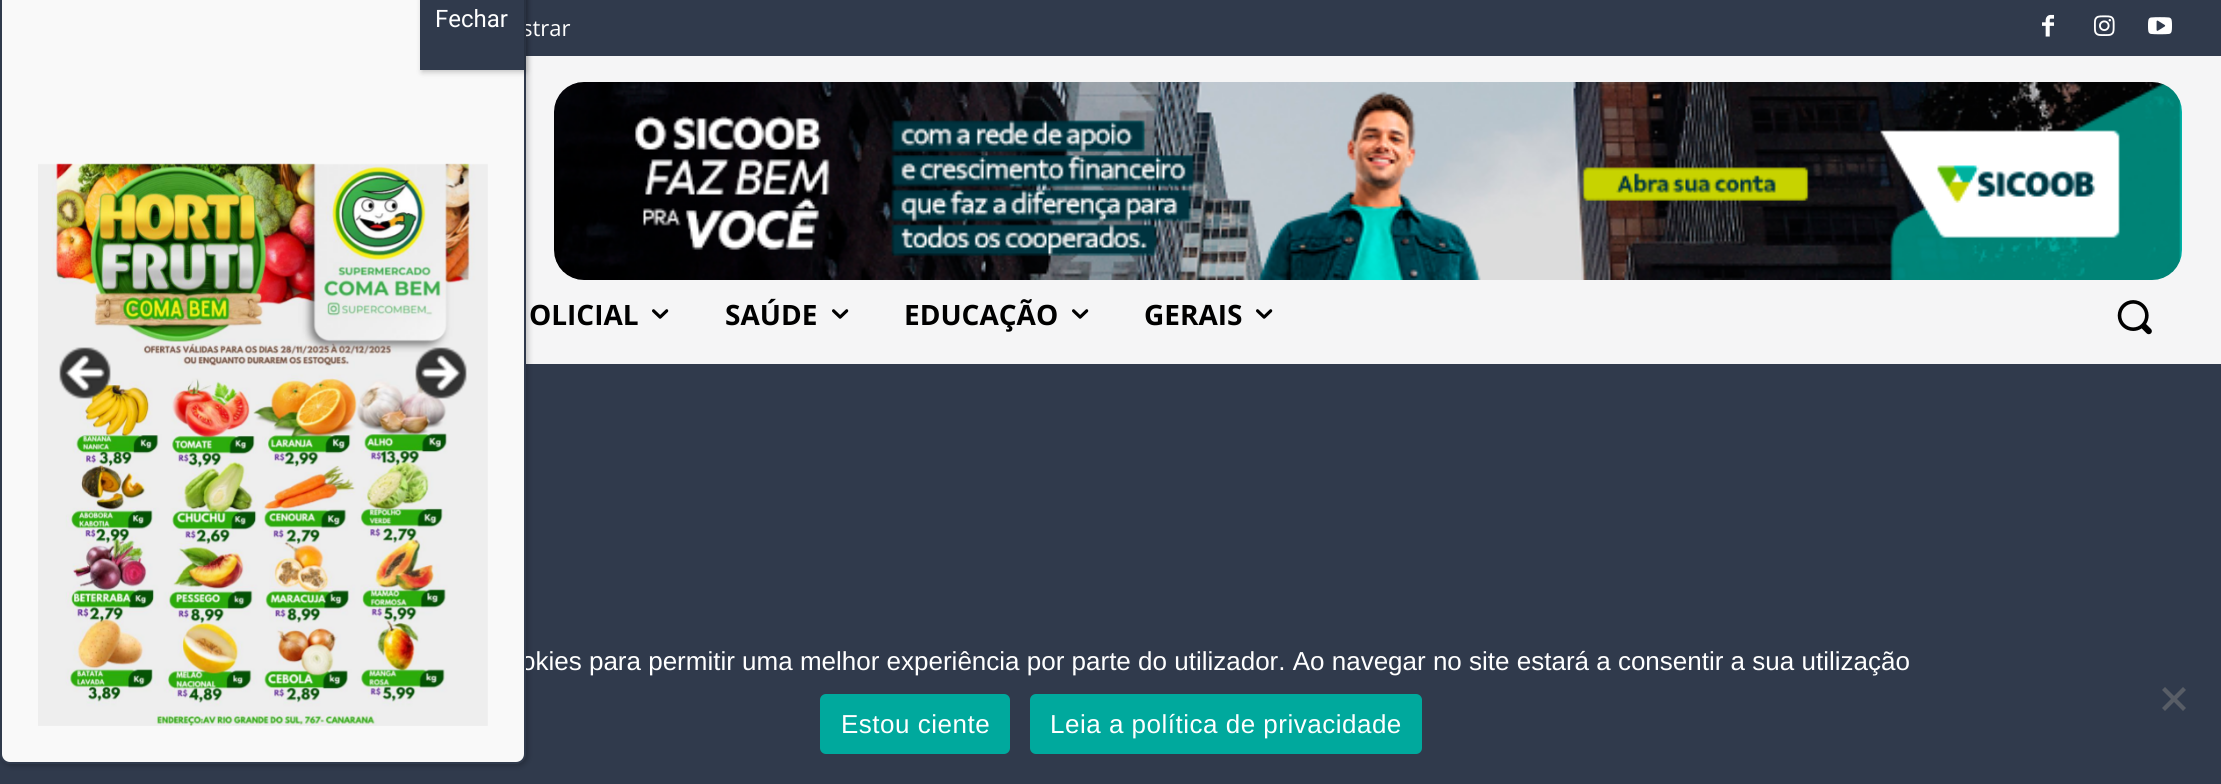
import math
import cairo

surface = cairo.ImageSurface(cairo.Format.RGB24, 2221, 784)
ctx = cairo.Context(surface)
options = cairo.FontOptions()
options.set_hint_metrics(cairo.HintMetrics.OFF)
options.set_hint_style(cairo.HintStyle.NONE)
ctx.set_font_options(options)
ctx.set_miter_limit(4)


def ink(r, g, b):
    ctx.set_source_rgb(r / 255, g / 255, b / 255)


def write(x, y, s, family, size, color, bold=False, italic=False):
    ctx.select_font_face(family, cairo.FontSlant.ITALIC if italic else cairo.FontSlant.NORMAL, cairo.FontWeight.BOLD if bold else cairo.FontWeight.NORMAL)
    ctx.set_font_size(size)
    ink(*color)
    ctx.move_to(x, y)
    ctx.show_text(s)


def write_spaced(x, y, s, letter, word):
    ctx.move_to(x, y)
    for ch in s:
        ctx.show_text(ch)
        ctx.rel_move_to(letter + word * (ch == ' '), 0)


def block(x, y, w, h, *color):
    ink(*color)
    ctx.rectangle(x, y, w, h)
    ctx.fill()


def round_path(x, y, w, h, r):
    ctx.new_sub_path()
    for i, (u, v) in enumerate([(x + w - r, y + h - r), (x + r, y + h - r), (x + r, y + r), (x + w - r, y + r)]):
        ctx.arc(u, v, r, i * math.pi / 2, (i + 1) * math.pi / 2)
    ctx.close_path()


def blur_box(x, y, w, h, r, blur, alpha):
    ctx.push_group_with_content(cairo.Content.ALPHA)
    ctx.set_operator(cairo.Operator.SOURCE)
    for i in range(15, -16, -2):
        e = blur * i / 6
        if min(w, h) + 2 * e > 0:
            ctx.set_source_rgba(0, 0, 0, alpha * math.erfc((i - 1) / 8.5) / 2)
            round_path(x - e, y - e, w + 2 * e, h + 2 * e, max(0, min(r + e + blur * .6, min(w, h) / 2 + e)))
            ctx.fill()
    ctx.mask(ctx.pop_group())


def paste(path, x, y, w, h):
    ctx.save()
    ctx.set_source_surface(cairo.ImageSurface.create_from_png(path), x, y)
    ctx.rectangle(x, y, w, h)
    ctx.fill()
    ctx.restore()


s1 = dict(family="Open Sans", size=22, color=(255, 255, 255))
s2 = dict(family="Liberation Sans", size=26, color=(255, 255, 255))
s3 = dict(family="Roboto", size=24, color=(255, 255, 255))
s4 = dict(family="Open Sans", size=28, color=(0, 0, 0), bold=True)

ink(48, 58, 76)
ctx.paint()
block(526, 56, 1695, 308, 245, 245, 246)
ink(2, 2, 2)
blur_box(2, -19, 526, 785, 10, 3, 0.23)
write(522, 36, "strar", **s1)
write(521, 670, "okies para permitir uma melhor experiência por parte do utilizador. Ao navegar no site estará a consentir a sua utilização", **s2)
ink(249, 249, 249)
round_path(1, -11, 524, 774, 9)
ctx.fill_preserve()
ink(48, 58, 76)
ctx.stroke()
ink(2, 2, 2)
blur_box(422, -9, 104, 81, 0, 3, 0.23)
block(420, 0, 104, 70, 48, 58, 76)
write(435, 27, "Fechar", **s3)
paste("pic1.png", 38, 163, 450, 563)
paste("pic2.png", 59, 347, 52, 52)
paste("pic3.png", 415, 347, 52, 52)
paste("pic4.png", 2042, 14, 12, 23)
paste("pic5.png", 2094, 15, 21, 21)
paste("pic6.png", 2148, 17, 24, 18)
paste("pic7.png", 554, 82, 1628, 198)
write(529, 325, "OLICIAL", **s4)
paste("pic8.png", 652, 309, 17, 10)
write(725, 325, "SAÚDE", **s4)
paste("pic8.png", 832, 309, 17, 10)
write(904, 325, "EDUCAÇÃO", **s4)
paste("pic8.png", 1072, 309, 17, 10)
write(1144, 325, "GERAIS", **s4)
paste("pic8.png", 1256, 309, 17, 10)
paste("pic9.png", 2117, 300, 35, 35)
ink(88, 93, 102)
ctx.new_path()
ctx.move_to(2183, 687)
ctx.line_to(2186, 690)
ctx.line_to(2165, 711)
ctx.line_to(2162, 708)
ctx.close_path()
ctx.fill()
ctx.new_path()
ctx.move_to(2162, 690)
ctx.line_to(2165, 687)
ctx.line_to(2186, 708)
ctx.line_to(2183, 711)
ctx.close_path()
ctx.fill()
ink(0, 169, 157)
round_path(820, 694, 190, 60, 6)
ctx.fill()
ctx.select_font_face("Liberation Sans")
ctx.set_font_size(26)
ink(255, 255, 255)
write_spaced(841, 733, "Estou ciente", 0.5, 0)
ink(0, 169, 157)
round_path(1030, 694, 392, 60, 6)
ctx.fill()
ink(255, 255, 255)
write_spaced(1050, 733, "Leia a política de privacidade", 0.5, 0)
surface.write_to_png("screenshot.png")
